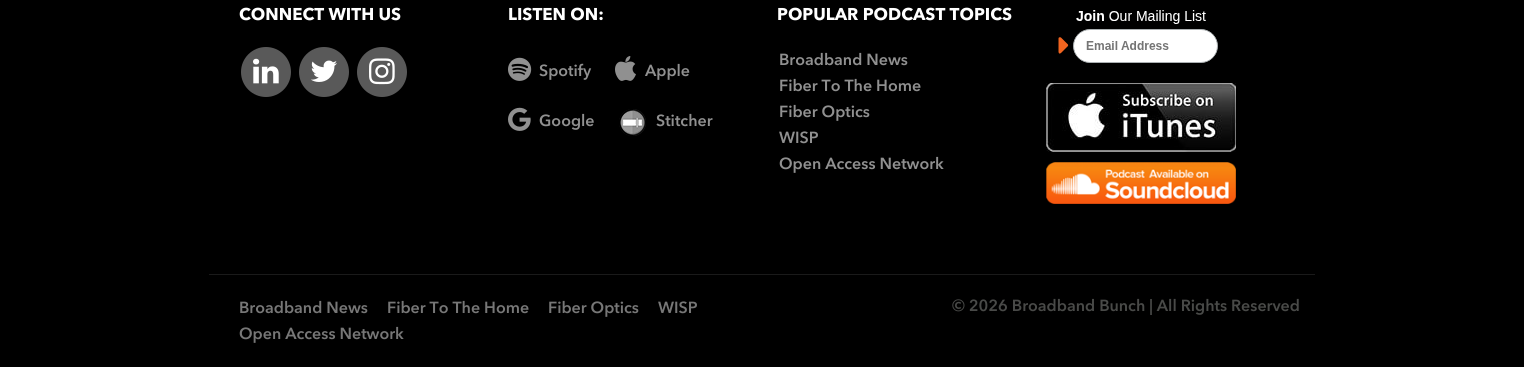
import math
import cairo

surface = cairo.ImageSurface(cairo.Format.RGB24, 1524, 367)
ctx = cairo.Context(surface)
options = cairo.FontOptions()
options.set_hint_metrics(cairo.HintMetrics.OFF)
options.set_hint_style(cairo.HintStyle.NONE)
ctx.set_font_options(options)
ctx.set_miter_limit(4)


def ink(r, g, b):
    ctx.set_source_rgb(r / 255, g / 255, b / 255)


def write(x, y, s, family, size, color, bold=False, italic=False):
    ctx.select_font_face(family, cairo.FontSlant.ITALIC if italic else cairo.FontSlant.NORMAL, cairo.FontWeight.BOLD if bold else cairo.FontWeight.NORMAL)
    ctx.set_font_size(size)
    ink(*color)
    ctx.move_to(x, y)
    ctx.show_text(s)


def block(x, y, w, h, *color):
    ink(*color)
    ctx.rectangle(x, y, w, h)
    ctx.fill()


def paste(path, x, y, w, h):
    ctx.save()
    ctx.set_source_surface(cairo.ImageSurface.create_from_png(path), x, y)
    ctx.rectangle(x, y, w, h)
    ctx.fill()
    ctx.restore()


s1 = dict(family="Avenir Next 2", size=17, color=(255, 255, 255))
s2 = dict(family="Avenir Next", size=16, color=(144, 144, 144))
s3 = dict(family="Avenir Next", size=16, color=(119, 119, 119))
s4 = dict(family="Avenir Next", size=16, color=(73, 74, 72))

ink(0, 0, 0)
ctx.paint()
write(239, 20, "CONNECT WITH US", **s1)
ink(89, 89, 89)
ctx.new_path()
ctx.arc(266, 72, 25, 0, 2 * math.pi)
ctx.fill()
paste("pic1.png", 253, 58, 26, 26)
ctx.arc(324, 72, 25, 0, 2 * math.pi)
ctx.fill()
paste("pic2.png", 311, 60, 26, 22)
ctx.arc(382, 72, 25, 0, 2 * math.pi)
ctx.fill()
paste("pic3.png", 369, 58, 26, 27)
write(508, 20, "LISTEN ON:", **s1)
paste("pic4.png", 508, 57, 24, 24)
write(539, 76, "Spotify", **s2)
paste("pic5.png", 615, 56, 21, 25)
write(645, 76, "Apple", **s2)
paste("pic6.png", 508, 107, 23, 24)
write(539, 126, "Google", **s2)
paste("pic7.png", 619, 109, 27, 27)
write(656, 126, "Stitcher", **s2)
write(777, 20, "POPULAR PODCAST TOPICS", **s1)
write(779, 65, "Broadband News", **s2)
write(779, 91, "Fiber To The Home", **s2)
write(779, 117, "Fiber Optics", **s2)
write(779, 143, "WISP", **s2)
write(779, 169, "Open Access Network", **s2)
paste("pic8.png", 1058, 10, 160, 53)
paste("pic9.png", 1046, 83, 190, 69)
paste("pic10.png", 1046, 162, 190, 42)
block(209, 274, 1106, 1, 26, 26, 26)
write(239, 313, "Broadband News", **s3)
write(387, 313, "Fiber To The Home", **s3)
write(548, 313, "Fiber Optics", **s3)
write(658, 313, "WISP", **s3)
write(239, 339, "Open Access Network", **s3)
write(952, 311, "© 2026 Broadband Bunch | All Rights Reserved", **s4)
surface.write_to_png("screenshot.png")
